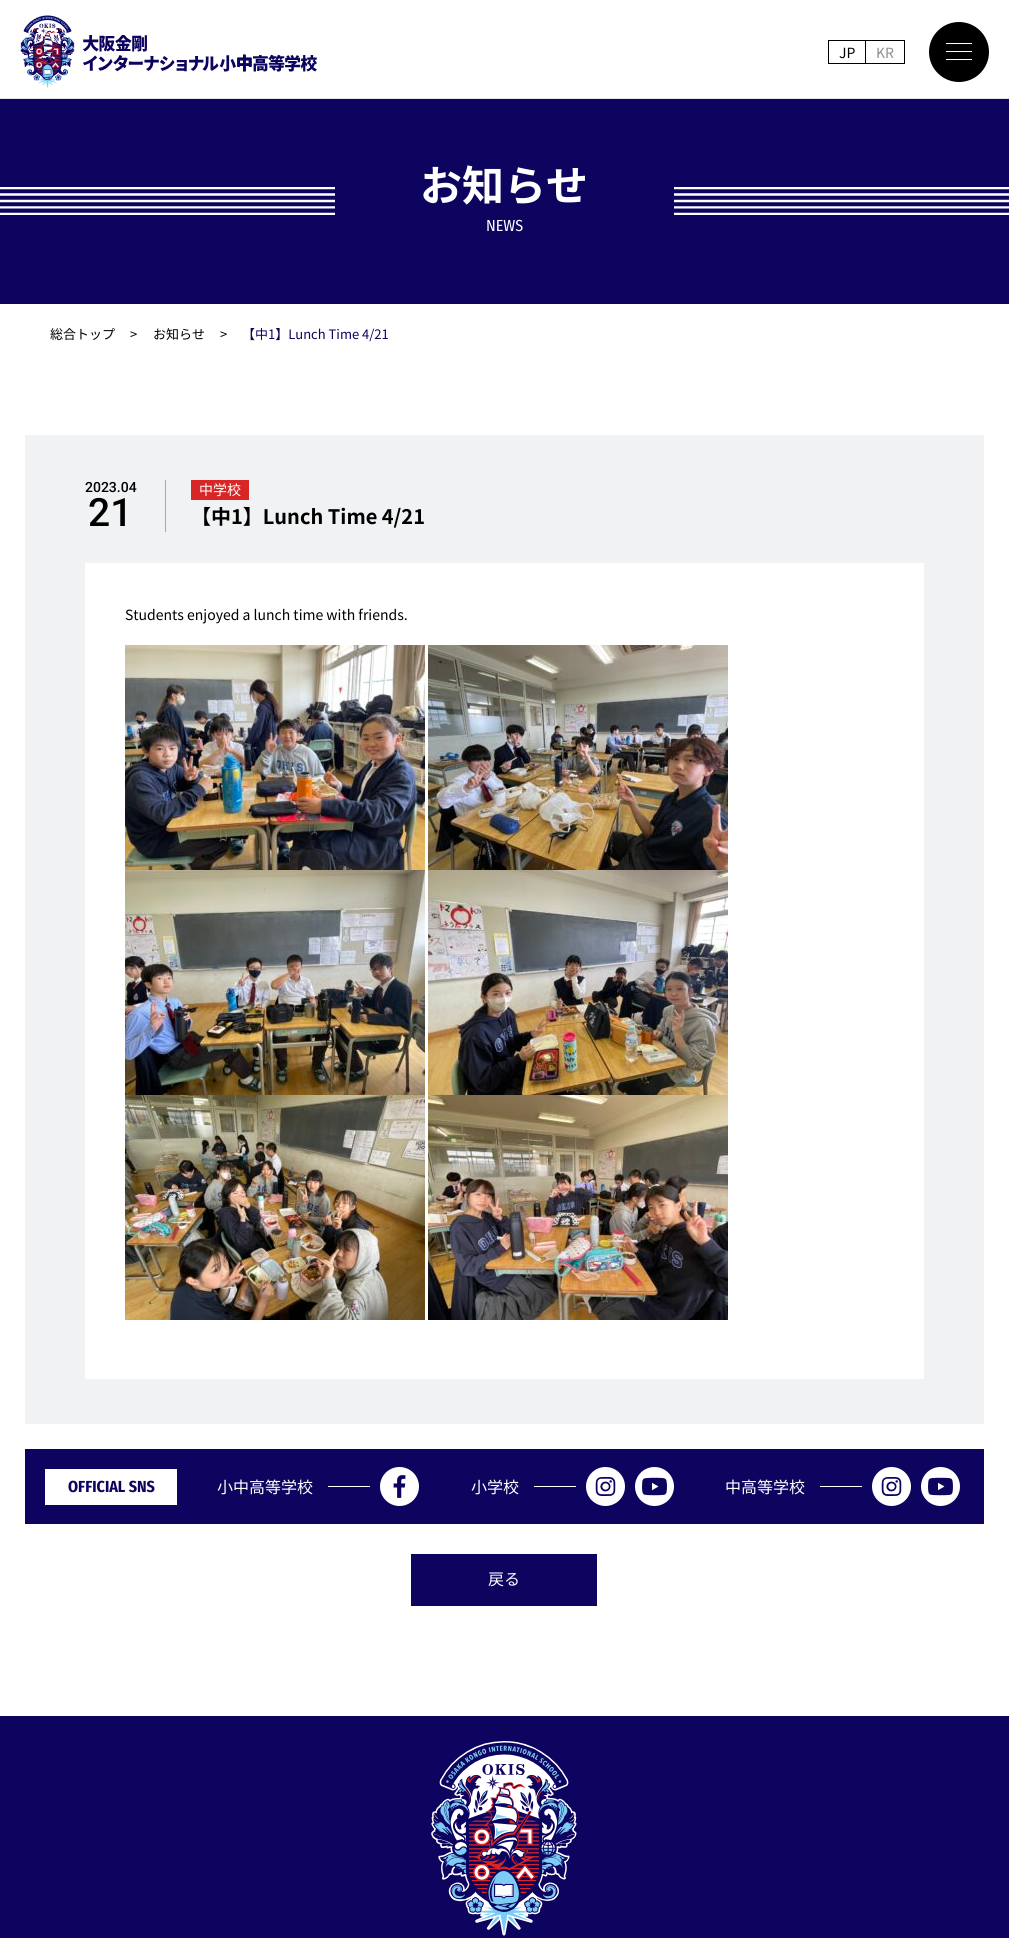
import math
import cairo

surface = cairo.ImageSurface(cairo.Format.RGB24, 1009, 1938)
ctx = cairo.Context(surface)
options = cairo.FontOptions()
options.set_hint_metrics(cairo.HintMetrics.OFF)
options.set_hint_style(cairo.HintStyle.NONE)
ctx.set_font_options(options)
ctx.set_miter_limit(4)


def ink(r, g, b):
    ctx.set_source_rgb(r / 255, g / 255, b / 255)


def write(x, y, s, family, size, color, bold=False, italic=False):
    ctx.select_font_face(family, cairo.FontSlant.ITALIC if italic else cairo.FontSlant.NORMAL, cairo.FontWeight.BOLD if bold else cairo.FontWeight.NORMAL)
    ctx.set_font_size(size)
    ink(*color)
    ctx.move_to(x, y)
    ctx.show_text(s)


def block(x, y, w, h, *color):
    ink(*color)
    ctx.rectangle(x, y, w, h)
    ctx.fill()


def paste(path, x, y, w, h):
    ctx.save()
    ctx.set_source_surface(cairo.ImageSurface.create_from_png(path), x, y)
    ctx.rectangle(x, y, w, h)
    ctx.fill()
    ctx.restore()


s1 = dict(family="Noto Sans JP", size=14, color=(0, 0, 0))
s2 = dict(family="Noto Sans JP", size=14, color=(142, 142, 142))
s3 = dict(family="Noto Sans JP", size=42, color=(255, 255, 255), bold=True)
s4 = dict(family="Fira Sans Condensed", size=16, color=(255, 255, 255))
s5 = dict(family="Noto Sans JP", size=13, color=(0, 0, 0))
s6 = dict(family="Noto Sans JP", size=13, color=(13, 4, 95))
s7 = dict(family="Roboto Medium", size=14, color=(0, 0, 0))
s8 = dict(family="Roboto Medium", size=39, color=(0, 0, 0))
s9 = dict(family="Noto Sans JP", size=14, color=(255, 255, 255))
s10 = dict(family="Noto Sans JP", size=20, color=(0, 0, 0), bold=True)
s11 = dict(family="Fira Sans Condensed", size=16, color=(13, 4, 95), bold=True)
s12 = dict(family="Noto Sans JP", size=16, color=(255, 255, 255))

ink(255, 255, 255)
ctx.paint()
paste("pic1.png", 20, 15, 297, 74)
block(828, 40, 37, 1, 0, 0, 0)
block(828, 63, 37, 1, 0, 0, 0)
block(828, 40, 1, 24, 0, 0, 0)
write(839, 58, "JP", **s1)
ctx.rectangle(865.5, 40.5, 39, 23)
ctx.set_line_width(1)
ctx.stroke()
write(876, 58, "KR", **s2)
ink(0, 0, 0)
ctx.new_path()
ctx.arc(959, 52, 30, 0, 2 * math.pi)
ctx.fill()
block(946, 43, 26, 1, 255, 255, 255)
block(946, 51, 26, 1, 255, 255, 255)
block(946, 59, 26, 1, 255, 255, 255)
block(0, 99, 1009, 205, 13, 4, 95)
block(0, 98, 1009, 1, 231, 230, 239)
paste("pic2.png", 0, 187, 335, 28)
write(420, 201, "お知らせ", **s3)
write(486, 231, "NEWS", **s4)
paste("pic2.png", 674, 187, 335, 28)
write(50, 339, "総合トップ", **s5)
write(130, 339, ">", **s5)
write(153, 339, "お知らせ", **s5)
write(220, 339, ">", **s5)
write(242, 339, "【中1】Lunch Time 4/21", **s6)
block(25, 435, 959, 989, 241, 242, 243)
write(85, 492, "2023.04", **s7)
write(88, 526, "21", **s8)
block(165, 480, 1, 52, 169, 169, 169)
block(191, 480, 58, 20, 216, 38, 38)
write(199, 495, "中学校", **s9)
write(191, 524, "【中1】Lunch Time 4/21", **s10)
block(85, 563, 839, 816, 255, 255, 255)
write(125, 620, "Students enjoyed a lunch time with friends.", **s1)
paste("pic3.png", 125, 645, 300, 225)
paste("pic4.png", 428, 645, 300, 225)
paste("pic5.png", 125, 870, 300, 225)
paste("pic6.png", 428, 870, 300, 225)
paste("pic7.png", 125, 1095, 300, 225)
paste("pic8.png", 428, 1095, 300, 225)
block(25, 1449, 959, 75, 13, 4, 95)
block(45, 1469, 132, 36, 255, 255, 255)
write(68, 1492, "OFFICIAL SNS", **s11)
write(217, 1493, "小中高等学校", **s12)
block(328, 1486, 42, 1, 255, 255, 255)
paste("pic9.png", 380, 1467, 39, 39)
write(471, 1493, "小学校", **s12)
block(534, 1486, 42, 1, 255, 255, 255)
paste("pic10.png", 586, 1467, 39, 39)
paste("pic11.png", 635, 1467, 39, 39)
write(725, 1493, "中高等学校", **s12)
block(820, 1486, 42, 1, 255, 255, 255)
paste("pic10.png", 872, 1467, 39, 39)
paste("pic11.png", 921, 1467, 39, 39)
block(411, 1554, 186, 52, 13, 4, 95)
write(488, 1585, "戻る", **s12)
block(0, 1716, 1009, 222, 13, 4, 95)
paste("pic12.png", 431, 1741, 146, 195)
surface.write_to_png("screenshot.png")
